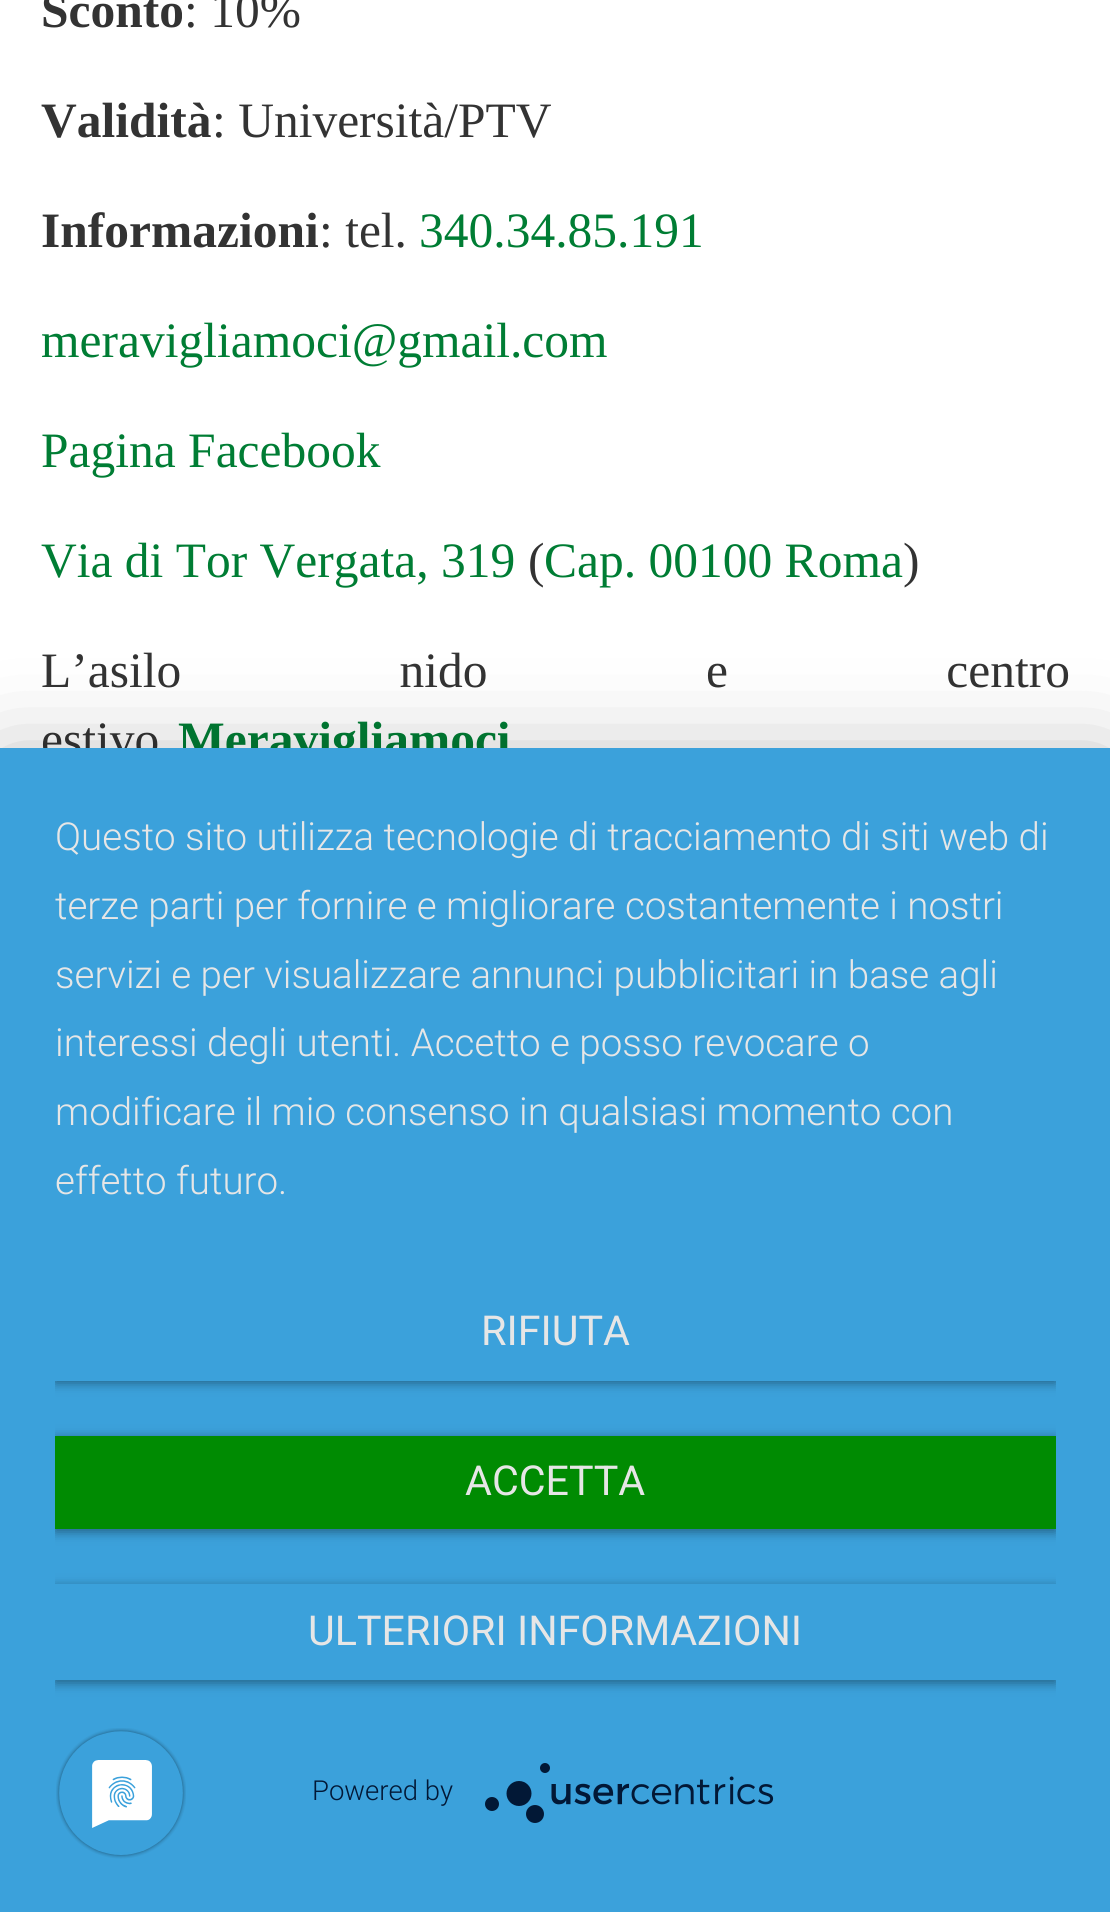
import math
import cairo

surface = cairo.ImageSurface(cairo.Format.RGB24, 1110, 1912)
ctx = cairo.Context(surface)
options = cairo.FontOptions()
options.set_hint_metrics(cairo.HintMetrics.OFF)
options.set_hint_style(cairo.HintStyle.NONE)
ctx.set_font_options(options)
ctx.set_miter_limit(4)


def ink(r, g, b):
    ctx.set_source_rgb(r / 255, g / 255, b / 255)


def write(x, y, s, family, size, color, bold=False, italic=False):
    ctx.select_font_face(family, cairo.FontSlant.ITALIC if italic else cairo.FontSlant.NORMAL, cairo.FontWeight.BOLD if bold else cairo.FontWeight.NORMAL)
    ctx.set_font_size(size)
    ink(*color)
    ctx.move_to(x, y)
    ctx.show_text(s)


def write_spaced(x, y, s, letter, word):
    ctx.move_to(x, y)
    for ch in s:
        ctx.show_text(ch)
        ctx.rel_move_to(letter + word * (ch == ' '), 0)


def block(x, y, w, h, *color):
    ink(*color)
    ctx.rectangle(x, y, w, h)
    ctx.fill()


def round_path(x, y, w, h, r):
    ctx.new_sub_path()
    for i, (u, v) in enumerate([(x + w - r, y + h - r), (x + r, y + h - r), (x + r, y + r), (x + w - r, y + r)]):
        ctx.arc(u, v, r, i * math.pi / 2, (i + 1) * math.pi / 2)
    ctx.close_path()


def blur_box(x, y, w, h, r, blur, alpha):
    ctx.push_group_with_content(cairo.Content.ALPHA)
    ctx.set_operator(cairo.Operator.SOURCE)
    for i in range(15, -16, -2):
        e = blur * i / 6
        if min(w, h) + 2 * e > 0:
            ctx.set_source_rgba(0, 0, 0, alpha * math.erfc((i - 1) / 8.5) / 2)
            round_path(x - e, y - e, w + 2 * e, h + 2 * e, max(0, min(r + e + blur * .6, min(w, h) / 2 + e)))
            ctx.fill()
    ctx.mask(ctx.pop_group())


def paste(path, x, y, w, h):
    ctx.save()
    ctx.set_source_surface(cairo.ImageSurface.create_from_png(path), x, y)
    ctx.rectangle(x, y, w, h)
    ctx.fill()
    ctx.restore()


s1 = dict(family="Liberation Serif", size=49.5, color=(51, 51, 51), bold=True)
s2 = dict(family="Liberation Serif", size=49.5, color=(51, 51, 51))
s3 = dict(family="Liberation Serif", size=49.5, color=(0, 125, 52))
s4 = dict(family="Liberation Serif", size=49.5, color=(0, 125, 52), bold=True)
s5 = dict(family="Roboto Light", size=38.5, color=(230, 230, 230))
s6 = dict(family="Roboto", size=41.25, color=(230, 230, 230))
s7 = dict(family="Roboto Light", size=27.5, color=(2, 24, 54))

ink(255, 255, 255)
ctx.paint()
write(41, 27, "Sconto", **s1)
write(184, 27, ": 10%", **s2)
write(41, 137, "Validità", **s1)
write(212, 137, ": Università/PTV", **s2)
write(41, 247, "Informazioni", **s1)
write(319, 247, ": tel.", **s2)
write(419, 247, "340.34.85.191", **s3)
write(41, 357, "meravigliamoci@gmail.com", **s3)
write(41, 467, "Pagina Facebook", **s3)
write(41, 577, "Via di Tor Vergata, 319", **s3)
write(528, 577, "(", **s2)
write(544, 577, "Cap. 00100 Roma", **s3)
write(903, 577, ")", **s2)
write_spaced(41, 687, "L’asilo nido e centro", 0, 206)
write(41, 756, "estivo", **s2)
write(178, 756, "Meravigliamoci", **s4)
ink(0, 0, 0)
blur_box(0, 765, 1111, 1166, 0, 49.5, 0.3)
block(0, 748, 1110, 1164, 59, 161, 219)
write(55, 850, "Questo sito utilizza tecnologie di tracciamento di siti web di", **s5)
write(55, 919, "terze parti per fornire e migliorare costantemente i nostri", **s5)
write(55, 988, "servizi e per visualizzare annunci pubblicitari in base agli", **s5)
write(55, 1056, "interessi degli utenti. Accetto e posso revocare o", **s5)
write(55, 1125, "modificare il mio consenso in qualsiasi momento con", **s5)
write(55, 1194, "effetto futuro.", **s5)
ctx.save()
ctx.rectangle(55, 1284, 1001, 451)
ctx.clip()
ink(0, 0, 0)
blur_box(55, 1287, 1001, 96, 0, 5.5, 0.4)
ctx.restore()
block(55, 1284, 1001, 97, 59, 161, 219)
write(481, 1345, "RIFIUTA", **s6)
ctx.save()
ctx.rectangle(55, 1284, 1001, 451)
ctx.clip()
ink(0, 0, 0)
blur_box(55, 1438, 1001, 94, 0, 5.5, 0.4)
ctx.restore()
block(55, 1436, 1001, 93, 0, 139, 2)
write(465, 1495, "ACCETTA", **s6)
ctx.save()
ctx.rectangle(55, 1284, 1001, 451)
ctx.clip()
ctx.set_fill_rule(cairo.FillRule.EVEN_ODD)
ctx.new_path()
ctx.move_to(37, 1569)
ctx.line_to(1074, 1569)
ctx.line_to(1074, 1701)
ctx.line_to(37, 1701)
ctx.close_path()
ctx.move_to(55, 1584)
ctx.line_to(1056, 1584)
ctx.line_to(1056, 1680)
ctx.line_to(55, 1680)
ctx.close_path()
ctx.clip()
ink(0, 0, 0)
blur_box(55, 1587, 1001, 96, 0, 5.5, 0.4)
ctx.restore()
write(308, 1645, "ULTERIORI INFORMAZIONI", **s6)
write(312, 1800, "Powered by", **s7)
paste("pic1.png", 485, 1763, 289, 60)
paste("pic2.png", 56, 1728, 130, 131)
surface.write_to_png("screenshot.png")
